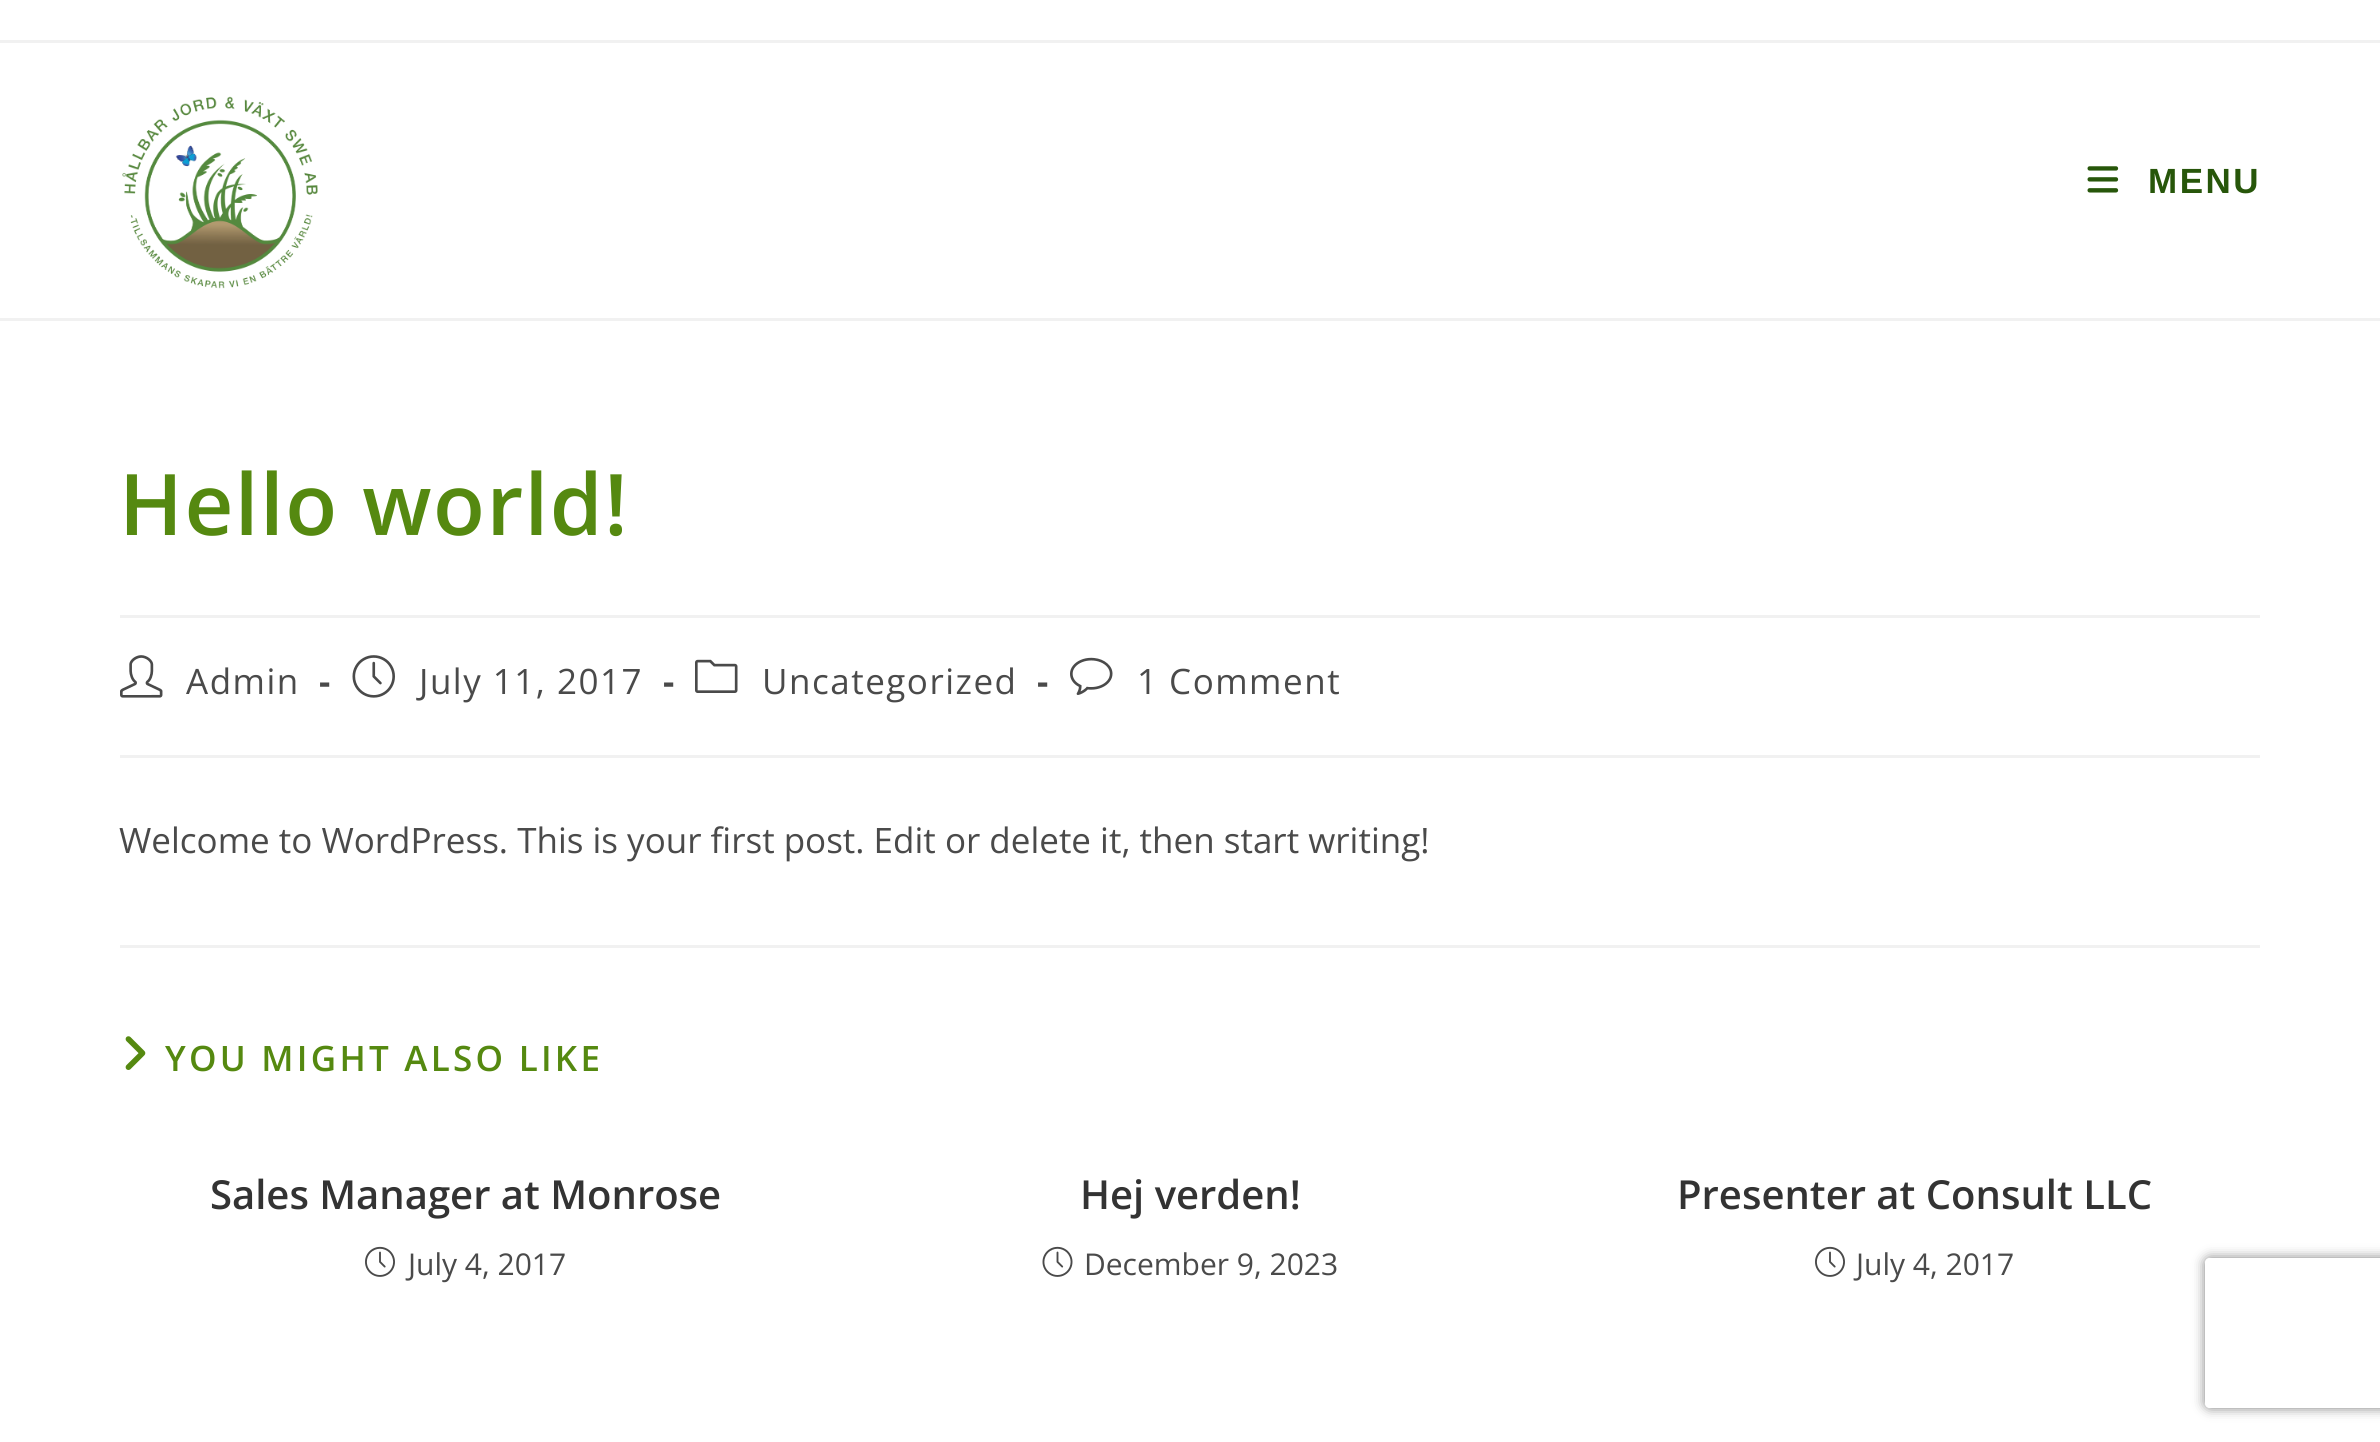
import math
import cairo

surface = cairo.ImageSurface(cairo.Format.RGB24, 2380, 1442)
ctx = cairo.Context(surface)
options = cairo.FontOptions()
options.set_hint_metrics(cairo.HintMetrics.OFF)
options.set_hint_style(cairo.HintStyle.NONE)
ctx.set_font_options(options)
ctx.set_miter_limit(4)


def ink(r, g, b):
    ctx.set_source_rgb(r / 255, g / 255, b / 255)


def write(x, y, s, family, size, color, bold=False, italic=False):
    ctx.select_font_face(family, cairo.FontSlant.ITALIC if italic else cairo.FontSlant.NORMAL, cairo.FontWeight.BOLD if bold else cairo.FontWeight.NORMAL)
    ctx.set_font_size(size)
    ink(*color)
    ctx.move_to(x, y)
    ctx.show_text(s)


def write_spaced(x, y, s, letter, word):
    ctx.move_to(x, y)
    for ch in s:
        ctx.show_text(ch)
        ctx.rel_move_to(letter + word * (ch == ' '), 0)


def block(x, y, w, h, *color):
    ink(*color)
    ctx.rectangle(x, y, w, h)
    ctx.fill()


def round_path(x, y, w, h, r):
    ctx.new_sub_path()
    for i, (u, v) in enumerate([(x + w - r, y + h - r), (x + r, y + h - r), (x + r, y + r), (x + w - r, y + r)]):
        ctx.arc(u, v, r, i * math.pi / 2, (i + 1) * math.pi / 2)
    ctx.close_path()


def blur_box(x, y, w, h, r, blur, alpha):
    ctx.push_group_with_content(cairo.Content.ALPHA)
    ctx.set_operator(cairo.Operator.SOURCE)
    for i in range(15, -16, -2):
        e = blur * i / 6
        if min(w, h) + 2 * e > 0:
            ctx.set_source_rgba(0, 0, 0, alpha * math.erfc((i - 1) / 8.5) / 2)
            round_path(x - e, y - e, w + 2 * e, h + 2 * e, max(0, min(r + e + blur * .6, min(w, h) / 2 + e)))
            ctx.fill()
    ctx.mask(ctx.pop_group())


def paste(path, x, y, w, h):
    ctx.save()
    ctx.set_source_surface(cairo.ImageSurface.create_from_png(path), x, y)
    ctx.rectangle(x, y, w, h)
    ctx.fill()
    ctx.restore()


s1 = dict(family="Open Sans", size=35, color=(74, 74, 74))
s2 = dict(family="Open Sans SemiBold", size=40, color=(51, 51, 51))
s3 = dict(family="Open Sans", size=30, color=(74, 74, 74))

ink(255, 255, 255)
ctx.paint()
block(0, 40, 2380, 3, 241, 241, 241)
block(0, 318, 2380, 3, 241, 241, 241)
paste("pic1.png", 122, 96, 196, 193)
paste("pic2.png", 2087, 166, 32, 27)
ctx.select_font_face("Liberation Sans", cairo.FontSlant.NORMAL, cairo.FontWeight.BOLD)
ctx.set_font_size(35)
ink(39, 86, 10)
write_spaced(2148, 193, "MENU", 2.5, 0)
block(120, 615, 2140, 3, 241, 241, 241)
ctx.select_font_face("Open Sans SemiBold")
ctx.set_font_size(85)
ink(85, 137, 16)
write_spaced(119, 535, "Hello world!", 1.5, 0)
block(120, 755, 2140, 3, 241, 241, 241)
paste("pic3.png", 120, 655, 43, 43)
ctx.select_font_face("Open Sans")
ctx.set_font_size(35)
ink(74, 74, 74)
write_spaced(186, 694, "Admin", 1.5, 0)
ctx.select_font_face("Open Sans", cairo.FontSlant.NORMAL, cairo.FontWeight.BOLD)
write_spaced(319, 694, "-", 1.5, 0)
paste("pic4.png", 352, 655, 43, 43)
ctx.select_font_face("Open Sans")
write_spaced(419, 694, "July 11, 2017", 1.5, 0)
ctx.select_font_face("Open Sans", cairo.FontSlant.NORMAL, cairo.FontWeight.BOLD)
write_spaced(663, 694, "-", 1.5, 0)
paste("pic5.png", 695, 659, 43, 34)
ctx.select_font_face("Open Sans")
write_spaced(762, 694, "Uncategorized", 1.5, 0)
ctx.select_font_face("Open Sans", cairo.FontSlant.NORMAL, cairo.FontWeight.BOLD)
write_spaced(1037, 694, "-", 1.5, 0)
paste("pic6.png", 1070, 657, 43, 38)
ctx.select_font_face("Open Sans")
write_spaced(1137, 694, "1 Comment", 1.5, 0)
write(119, 853, "Welcome to WordPress. This is your first post. Edit or delete it, then start writing!", **s1)
block(120, 945, 2140, 3, 241, 241, 241)
paste("pic7.png", 125, 1036, 21, 34)
ctx.select_font_face("Open Sans SemiBold")
ink(85, 137, 16)
write_spaced(165, 1071, "YOU MIGHT ALSO LIKE", 3.25, 0)
write(210, 1209, "Sales Manager at Monrose", **s2)
paste("pic8.png", 365, 1246, 30, 31)
write(408, 1275, "July 4, 2017", **s3)
write(1080, 1209, "Hej verden!", **s2)
paste("pic9.png", 1042, 1246, 31, 31)
write(1084, 1275, "December 9, 2023", **s3)
write(1677, 1209, "Presenter at Consult LLC", **s2)
paste("pic8.png", 1815, 1246, 30, 31)
write(1856, 1275, "July 4, 2017", **s3)
ctx.save()
ctx.set_fill_rule(cairo.FillRule.EVEN_ODD)
ctx.new_path()
ctx.move_to(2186, 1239)
ctx.line_to(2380, 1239)
ctx.line_to(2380, 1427)
ctx.line_to(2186, 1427)
ctx.close_path()
ctx.move_to(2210, 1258)
ctx.line_to(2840, 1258)
ctx.curve_to(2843, 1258, 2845, 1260, 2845, 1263)
ctx.line_to(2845, 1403)
ctx.curve_to(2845, 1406, 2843, 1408, 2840, 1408)
ctx.line_to(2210, 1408)
ctx.curve_to(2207, 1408, 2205, 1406, 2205, 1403)
ctx.line_to(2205, 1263)
ctx.curve_to(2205, 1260, 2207, 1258, 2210, 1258)
ctx.close_path()
ctx.clip()
ink(128, 128, 128)
blur_box(2205, 1258, 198, 150, 5, 6, 1)
ctx.restore()
surface.write_to_png("screenshot.png")
